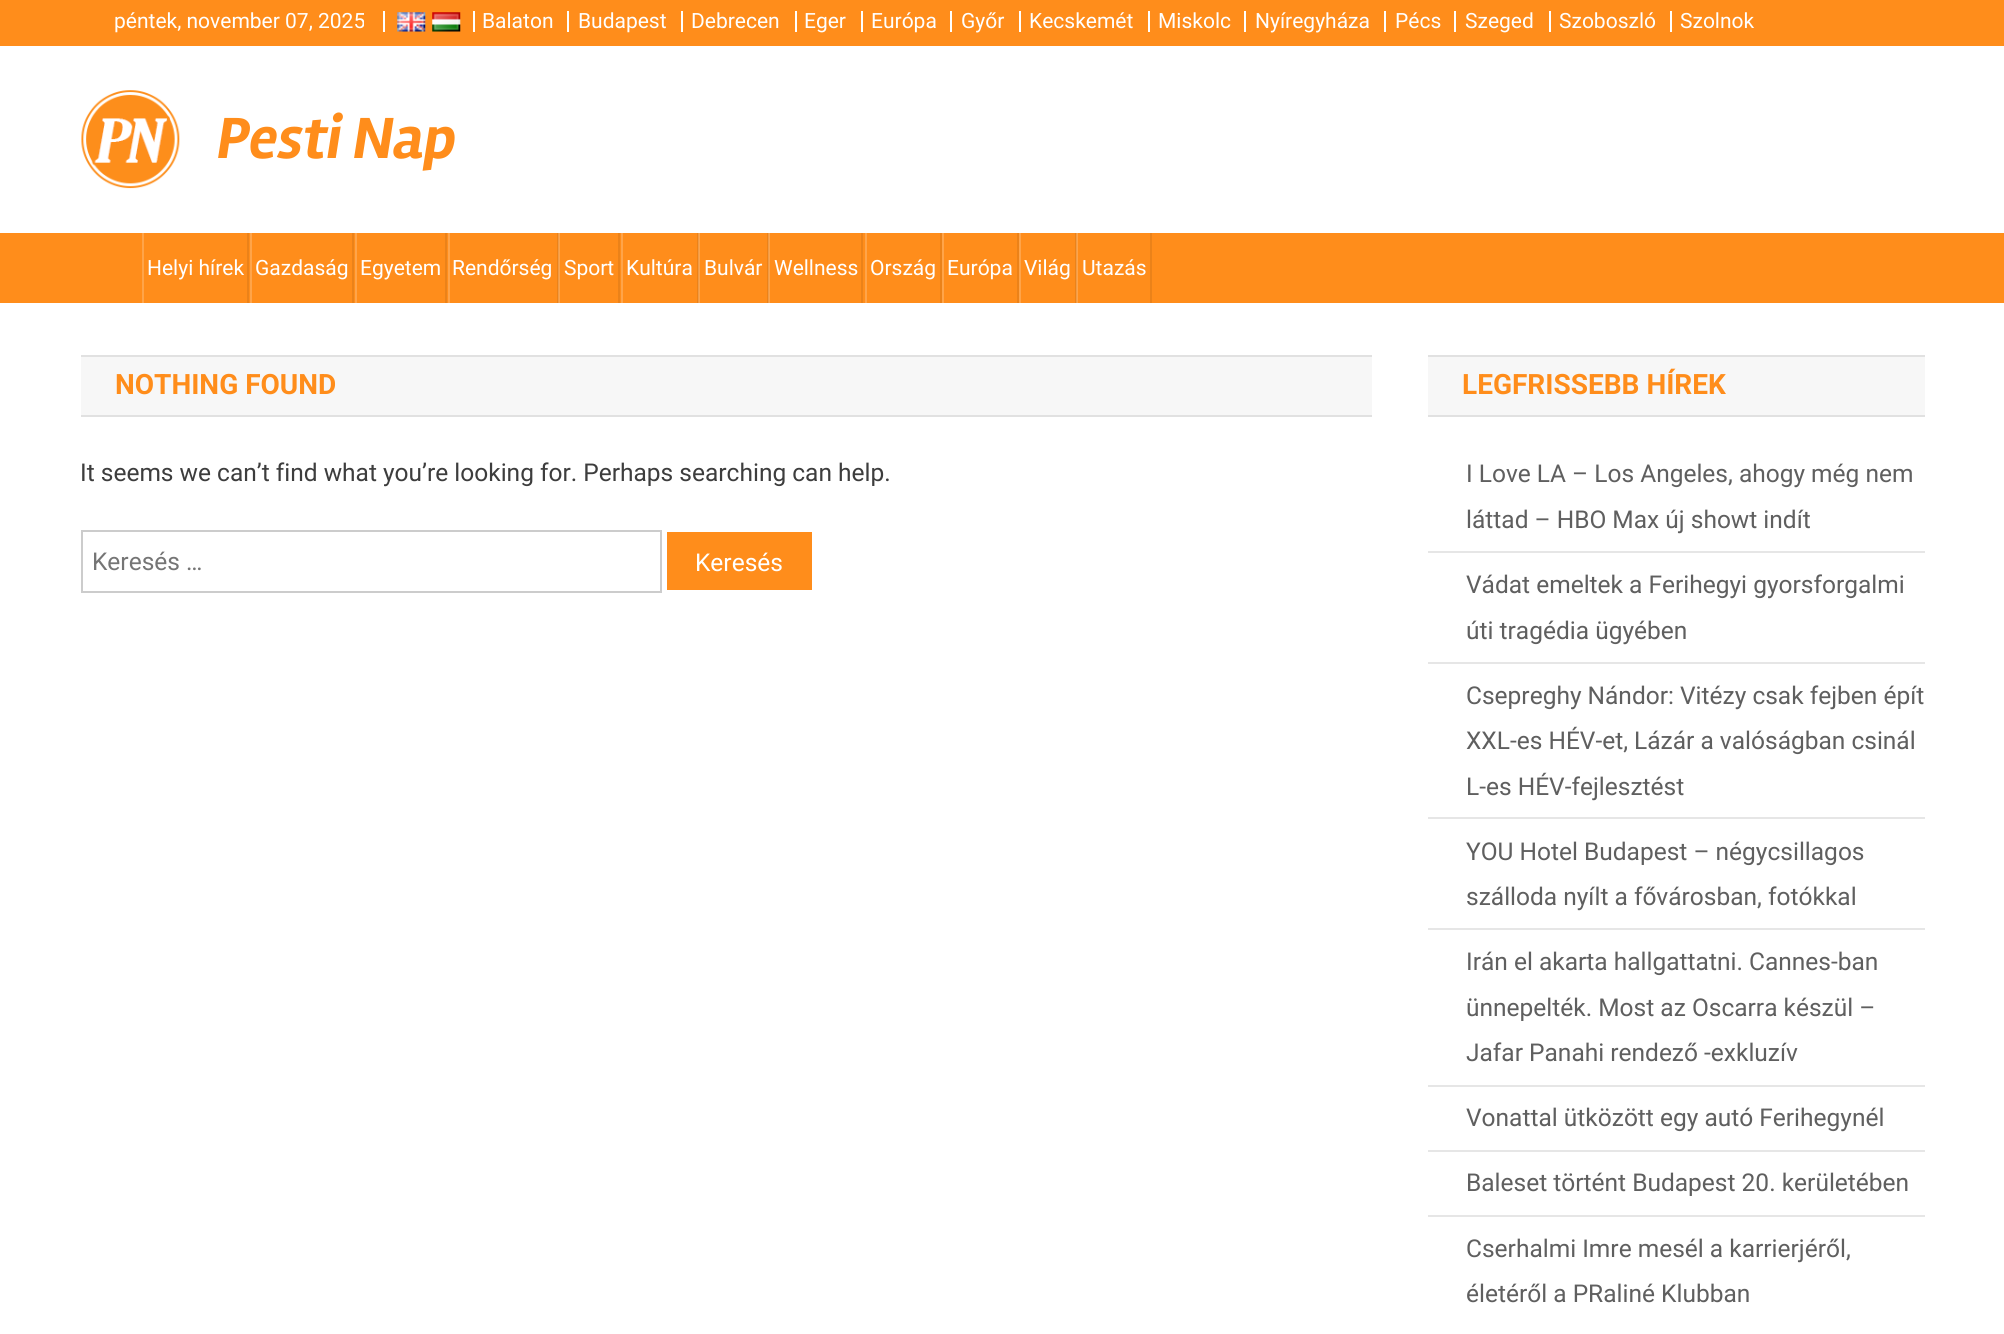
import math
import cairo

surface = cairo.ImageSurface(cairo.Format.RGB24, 2004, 1334)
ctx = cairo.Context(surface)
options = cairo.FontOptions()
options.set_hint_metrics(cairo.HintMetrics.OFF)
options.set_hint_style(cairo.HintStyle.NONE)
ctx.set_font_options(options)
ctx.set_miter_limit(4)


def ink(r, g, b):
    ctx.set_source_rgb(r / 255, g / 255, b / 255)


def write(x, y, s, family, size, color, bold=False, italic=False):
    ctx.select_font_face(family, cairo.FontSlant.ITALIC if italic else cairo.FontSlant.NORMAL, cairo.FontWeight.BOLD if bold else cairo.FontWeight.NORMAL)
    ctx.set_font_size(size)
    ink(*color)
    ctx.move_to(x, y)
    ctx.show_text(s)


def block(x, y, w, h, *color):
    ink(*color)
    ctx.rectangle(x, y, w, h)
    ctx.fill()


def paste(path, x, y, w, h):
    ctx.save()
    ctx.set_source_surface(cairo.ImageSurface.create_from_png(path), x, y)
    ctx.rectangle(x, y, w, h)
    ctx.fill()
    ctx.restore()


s1 = dict(family="Roboto", size=21, color=(255, 255, 255))
s2 = dict(family="Rambla", size=60, color=(255, 141, 27), bold=True, italic=True)
s3 = dict(family="Roboto", size=28, color=(255, 141, 27), bold=True)
s4 = dict(family="Roboto", size=24.5, color=(61, 61, 61))
s5 = dict(family="Roboto", size=24.5, color=(117, 117, 117))
s6 = dict(family="Roboto", size=24.5, color=(255, 255, 255))
s7 = dict(family="Roboto", size=24.5, color=(95, 95, 95))

ink(255, 255, 255)
ctx.paint()
block(0, 0, 2004, 46, 255, 141, 27)
write(114, 28, "péntek, november 07, 2025", **s1)
block(383, 11, 2, 21, 255, 255, 255)
paste("pic1.png", 397, 12, 29, 20)
paste("pic2.png", 432, 12, 29, 20)
block(473, 11, 2, 21, 255, 255, 255)
write(482, 28, "Balaton", **s1)
block(567, 11, 2, 21, 255, 255, 255)
write(578, 28, "Budapest", **s1)
block(681, 11, 2, 21, 255, 255, 255)
write(691, 28, "Debrecen", **s1)
block(795, 11, 2, 21, 255, 255, 255)
write(804, 28, "Eger", **s1)
block(861, 11, 2, 21, 255, 255, 255)
write(871, 28, "Európa", **s1)
block(950, 11, 2, 21, 255, 255, 255)
write(961, 28, "Győr", **s1)
block(1019, 11, 2, 21, 255, 255, 255)
write(1029, 28, "Kecskemét", **s1)
block(1148, 11, 2, 21, 255, 255, 255)
write(1158, 28, "Miskolc", **s1)
block(1244, 11, 2, 21, 255, 255, 255)
write(1255, 28, "Nyíregyháza", **s1)
block(1384, 11, 2, 21, 255, 255, 255)
write(1395, 28, "Pécs", **s1)
block(1454, 11, 2, 21, 255, 255, 255)
write(1465, 28, "Szeged", **s1)
block(1549, 11, 2, 21, 255, 255, 255)
write(1559, 28, "Szoboszló", **s1)
block(1670, 11, 2, 21, 255, 255, 255)
write(1680, 28, "Szolnok", **s1)
paste("pic3.png", 81, 90, 99, 99)
write(217, 158, "Pesti Nap", **s2)
block(0, 233, 2004, 70, 255, 141, 27)
block(1077, 233, 1, 70, 255, 164, 73)
block(769, 233, 1, 70, 255, 164, 73)
block(699, 233, 1, 70, 255, 164, 73)
block(559, 233, 1, 70, 255, 164, 73)
block(247, 233, 2, 70, 235, 130, 25)
block(142, 233, 2, 70, 255, 164, 73)
write(147, 275, "Helyi hírek", **s1)
block(352, 233, 2, 70, 235, 130, 25)
block(250, 233, 2, 70, 255, 164, 73)
write(255, 275, "Gazdaság", **s1)
block(445, 233, 2, 70, 235, 130, 25)
block(355, 233, 2, 70, 255, 164, 73)
write(360, 275, "Egyetem", **s1)
block(557, 233, 1, 70, 235, 130, 25)
block(558, 233, 1, 70, 239, 155, 71)
block(448, 233, 2, 70, 255, 164, 73)
write(452, 275, "Rendőrség", **s1)
block(618, 233, 2, 70, 235, 130, 25)
write(564, 275, "Sport", **s1)
block(697, 233, 1, 70, 235, 130, 25)
block(698, 233, 1, 70, 239, 155, 71)
block(621, 233, 2, 70, 255, 164, 73)
write(626, 275, "Kultúra", **s1)
block(767, 233, 1, 70, 235, 130, 25)
block(768, 233, 1, 70, 239, 155, 71)
write(704, 275, "Bulvár", **s1)
block(861, 233, 2, 70, 235, 130, 25)
write(774, 275, "Wellness", **s1)
block(940, 233, 2, 70, 235, 130, 25)
block(865, 233, 2, 70, 255, 164, 73)
write(870, 275, "Ország", **s1)
block(1017, 233, 2, 70, 235, 130, 25)
block(942, 233, 2, 70, 255, 164, 73)
write(947, 275, "Európa", **s1)
block(1075, 233, 1, 70, 235, 130, 25)
block(1076, 233, 1, 70, 239, 155, 71)
block(1019, 233, 2, 70, 255, 164, 73)
write(1024, 275, "Világ", **s1)
block(1150, 233, 2, 70, 235, 130, 25)
write(1082, 275, "Utazás", **s1)
block(81, 357, 1291, 58, 247, 247, 247)
block(81, 355, 1291, 2, 225, 225, 225)
block(81, 415, 1291, 2, 225, 225, 225)
write(115, 394, "NOTHING FOUND", **s3)
write(80, 481, "It seems we can’t find what you’re looking for. Perhaps searching can help.", **s4)
ctx.rectangle(82, 531, 579, 61)
ink(204, 204, 204)
ctx.stroke()
write(92, 570, "Keresés …", **s5)
block(667, 532, 145, 58, 255, 141, 27)
write(695, 571, "Keresés", **s6)
block(1428, 357, 497, 58, 247, 247, 247)
block(1428, 355, 497, 2, 225, 225, 225)
block(1428, 415, 497, 2, 225, 225, 225)
write(1462, 394, "LEGFRISSEBB HÍREK", **s3)
block(1428, 551, 497, 2, 230, 230, 230)
write(1466, 482, "I Love LA – Los Angeles, ahogy még nem", **s7)
write(1466, 528, "láttad – HBO Max új showt indít", **s7)
block(1428, 662, 497, 2, 230, 230, 230)
write(1466, 593, "Vádat emeltek a Ferihegyi gyorsforgalmi", **s7)
write(1466, 639, "úti tragédia ügyében", **s7)
block(1428, 817, 497, 2, 230, 230, 230)
write(1466, 704, "Csepreghy Nándor: Vitézy csak fejben épít", **s7)
write(1466, 749, "XXL-es HÉV-et, Lázár a valóságban csinál", **s7)
write(1466, 795, "L-es HÉV-fejlesztést", **s7)
block(1428, 928, 497, 2, 230, 230, 230)
write(1466, 860, "YOU Hotel Budapest – négycsillagos", **s7)
write(1466, 905, "szálloda nyílt a fővárosban, fotókkal", **s7)
block(1428, 1085, 497, 2, 230, 230, 230)
write(1466, 970, "Irán el akarta hallgattatni. Cannes-ban", **s7)
write(1466, 1016, "ünnepelték. Most az Oscarra készül –", **s7)
write(1466, 1061, "Jafar Panahi rendező -exkluzív", **s7)
block(1428, 1150, 497, 2, 230, 230, 230)
write(1466, 1126, "Vonattal ütközött egy autó Ferihegynél", **s7)
block(1428, 1215, 497, 2, 230, 230, 230)
write(1466, 1191, "Baleset történt Budapest 20. kerületében", **s7)
write(1466, 1257, "Cserhalmi Imre mesél a karrierjéről,", **s7)
write(1466, 1302, "életéről a PRaliné Klubban", **s7)
surface.write_to_png("screenshot.png")
